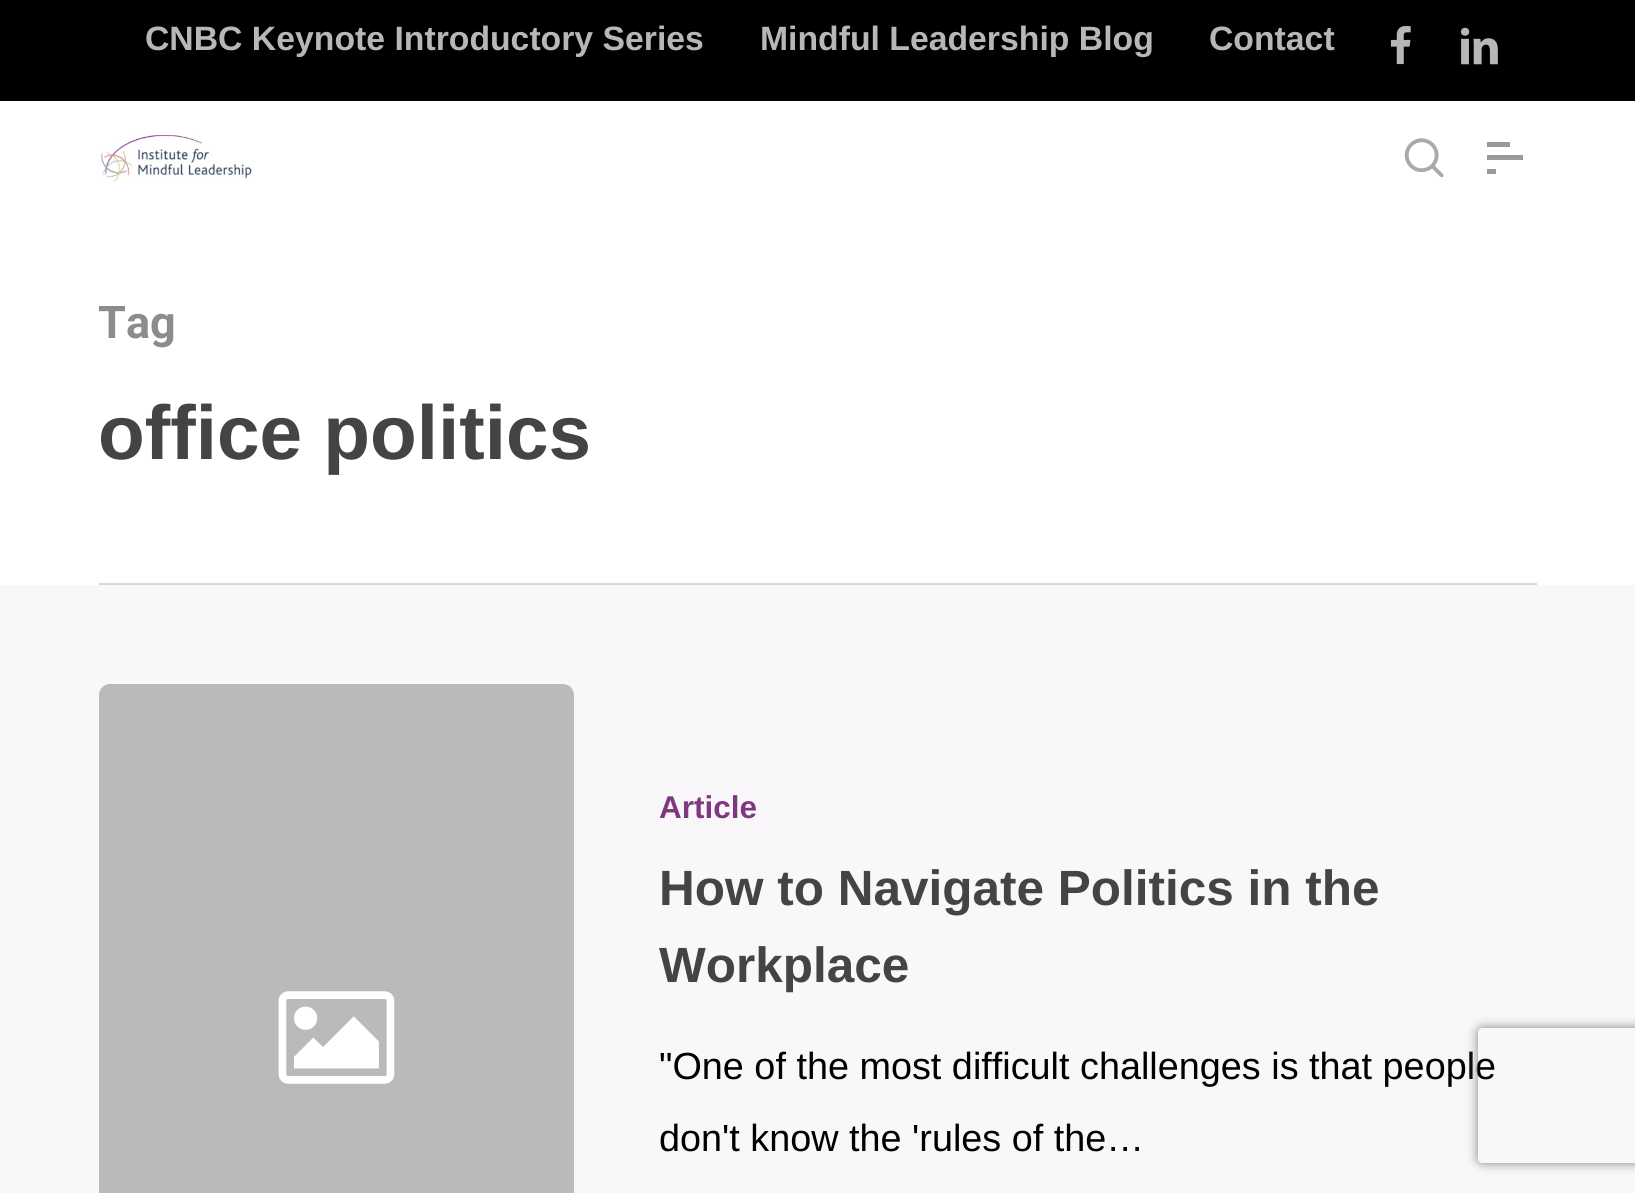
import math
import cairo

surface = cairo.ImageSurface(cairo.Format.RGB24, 1635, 1193)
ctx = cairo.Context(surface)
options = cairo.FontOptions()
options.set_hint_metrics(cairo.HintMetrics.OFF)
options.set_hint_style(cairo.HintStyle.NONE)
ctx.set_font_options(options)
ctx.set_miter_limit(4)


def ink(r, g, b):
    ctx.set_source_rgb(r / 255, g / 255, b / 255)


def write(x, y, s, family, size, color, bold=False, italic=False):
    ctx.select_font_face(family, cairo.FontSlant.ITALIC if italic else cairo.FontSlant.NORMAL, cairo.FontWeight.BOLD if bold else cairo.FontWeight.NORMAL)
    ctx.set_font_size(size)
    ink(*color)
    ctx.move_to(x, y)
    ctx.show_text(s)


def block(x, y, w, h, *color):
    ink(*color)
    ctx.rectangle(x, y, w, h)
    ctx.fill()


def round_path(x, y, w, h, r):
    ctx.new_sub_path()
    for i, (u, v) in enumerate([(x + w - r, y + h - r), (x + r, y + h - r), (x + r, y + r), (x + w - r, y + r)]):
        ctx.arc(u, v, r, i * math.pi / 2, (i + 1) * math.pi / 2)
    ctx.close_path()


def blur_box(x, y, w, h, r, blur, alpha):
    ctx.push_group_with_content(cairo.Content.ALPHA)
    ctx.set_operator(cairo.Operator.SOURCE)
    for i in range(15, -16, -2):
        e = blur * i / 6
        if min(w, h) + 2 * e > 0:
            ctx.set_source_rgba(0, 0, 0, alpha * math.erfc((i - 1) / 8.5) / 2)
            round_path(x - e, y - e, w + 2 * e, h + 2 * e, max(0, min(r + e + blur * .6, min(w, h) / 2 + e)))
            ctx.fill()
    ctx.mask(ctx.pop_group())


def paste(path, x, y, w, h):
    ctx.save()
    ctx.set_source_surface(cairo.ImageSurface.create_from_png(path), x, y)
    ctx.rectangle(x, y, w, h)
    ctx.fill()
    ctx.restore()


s1 = dict(family="Liberation Sans", size=33.75, color=(183, 183, 183), bold=True)
s2 = dict(family="Roboto", size=45, color=(140, 140, 140), bold=True)
s3 = dict(family="Liberation Sans", size=76.5, color=(68, 68, 68), bold=True)
s4 = dict(family="Liberation Sans", size=31.5, color=(126, 56, 129), bold=True)
s5 = dict(family="Liberation Sans", size=49.5, color=(68, 68, 68), bold=True)
s6 = dict(family="Liberation Sans", size=37.8, color=(0, 0, 0))

ink(255, 255, 255)
ctx.paint()
block(0, 0, 1635, 101, 0, 0, 0)
write(145, 50, "CNBC Keynote Introductory Series", **s1)
write(760, 50, "Mindful Leadership Blog", **s1)
write(1209, 50, "Contact", **s1)
paste("pic1.png", 1390, 26, 21, 39)
paste("pic2.png", 1460, 27, 38, 38)
paste("pic3.png", 101, 135, 151, 48)
paste("pic4.png", 1404, 138, 40, 40)
block(1487, 142, 23, 5, 153, 153, 153)
block(1487, 169, 9, 5, 153, 153, 153)
block(1487, 155, 36, 5, 153, 153, 153)
block(99, 583, 1438, 2, 217, 217, 217)
write(98, 338, "Tag", **s2)
write(98, 459, "office politics", **s3)
block(0, 585, 1635, 608, 250, 247, 250)
ink(187, 186, 187)
round_path(99, 684, 475, 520, 11)
ctx.fill()
paste("pic5.png", 278, 991, 117, 93)
write(659, 818, "Article", **s4)
write(659, 905, "How to Navigate Politics in the", **s5)
write(659, 982, "Workplace", **s5)
write(659, 1079, "\"One of the most difficult challenges is that people", **s6)
write(659, 1151, "don't know the 'rules of the…", **s6)
ctx.save()
ctx.set_fill_rule(cairo.FillRule.EVEN_ODD)
ctx.new_path()
ctx.move_to(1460, 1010)
ctx.line_to(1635, 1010)
ctx.line_to(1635, 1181)
ctx.line_to(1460, 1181)
ctx.close_path()
ctx.move_to(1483, 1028)
ctx.line_to(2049, 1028)
ctx.curve_to(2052, 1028, 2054, 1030, 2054, 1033)
ctx.line_to(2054, 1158)
ctx.curve_to(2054, 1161, 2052, 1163, 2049, 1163)
ctx.line_to(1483, 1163)
ctx.curve_to(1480, 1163, 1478, 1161, 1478, 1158)
ctx.line_to(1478, 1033)
ctx.curve_to(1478, 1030, 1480, 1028, 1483, 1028)
ctx.close_path()
ctx.clip()
ink(128, 128, 128)
blur_box(1478, 1028, 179, 135, 5, 5.5, 1)
ctx.restore()
surface.write_to_png("screenshot.png")
